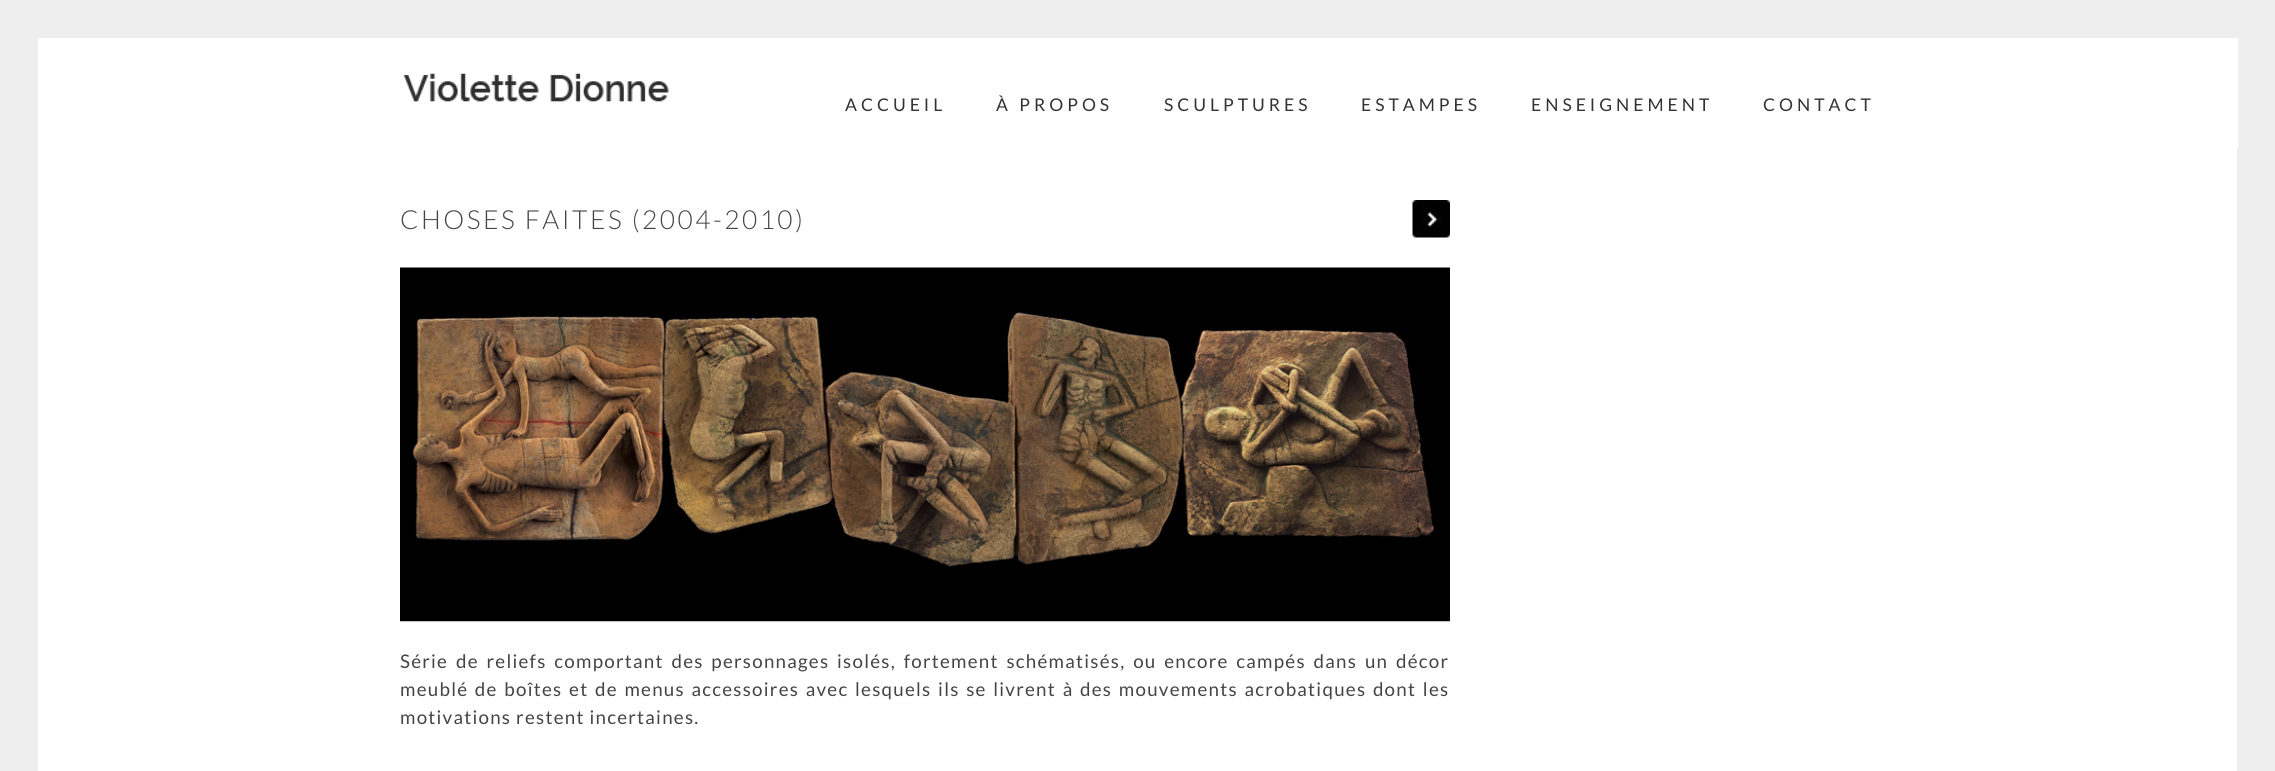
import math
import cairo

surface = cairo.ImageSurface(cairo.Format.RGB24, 2275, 771)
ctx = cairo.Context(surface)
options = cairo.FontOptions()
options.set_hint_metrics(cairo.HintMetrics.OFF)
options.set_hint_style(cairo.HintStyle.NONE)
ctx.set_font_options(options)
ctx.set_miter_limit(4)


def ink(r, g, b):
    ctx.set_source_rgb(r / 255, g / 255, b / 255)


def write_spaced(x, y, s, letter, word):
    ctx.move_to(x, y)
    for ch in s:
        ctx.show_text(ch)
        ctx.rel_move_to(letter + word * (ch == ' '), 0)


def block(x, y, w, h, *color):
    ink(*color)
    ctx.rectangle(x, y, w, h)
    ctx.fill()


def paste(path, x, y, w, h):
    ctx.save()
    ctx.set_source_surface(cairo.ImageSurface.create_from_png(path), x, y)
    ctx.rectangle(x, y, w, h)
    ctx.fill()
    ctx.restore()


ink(255, 255, 255)
ctx.paint()
ctx.rectangle(19, 19, 2237, 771)
ink(238, 238, 238)
ctx.set_line_width(38)
ctx.stroke()
block(2237, 38, 1, 110, 255, 255, 255)
paste("pic1.png", 403, 73, 266, 29)
ctx.select_font_face("Lato")
ctx.set_font_size(17.5)
ink(51, 51, 51)
write_spaced(845, 111, "ACCUEIL", 4, 0)
write_spaced(996, 111, "À PROPOS", 4, 0)
write_spaced(1164, 111, "SCULPTURES", 4, 0)
write_spaced(1361, 111, "ESTAMPES", 4, 0)
write_spaced(1531, 111, "ENSEIGNEMENT", 4, 0)
write_spaced(1763, 111, "CONTACT", 4, 0)
ctx.select_font_face("Lato Light")
ctx.set_font_size(26.25)
ink(68, 68, 68)
write_spaced(400, 229, "CHOSES FAITES (2004-2010)", 2.5, 0)
paste("pic2.png", 1412, 200, 38, 38)
paste("pic3.png", 400, 267, 1050, 355)
ctx.select_font_face("Lato")
ctx.set_font_size(18.75)
write_spaced(400, 668, "Série de reliefs comportant des personnages isolés, fortement schématisés, ou encore campés dans un décor", 1.25, 2.9)
write_spaced(400, 696, "meublé de boîtes et de menus accessoires avec lesquels ils se livrent à des mouvements acrobatiques dont les", 1.25, 1.75)
write_spaced(400, 724, "motivations restent incertaines.", 1.25, 0)
surface.write_to_png("screenshot.png")
